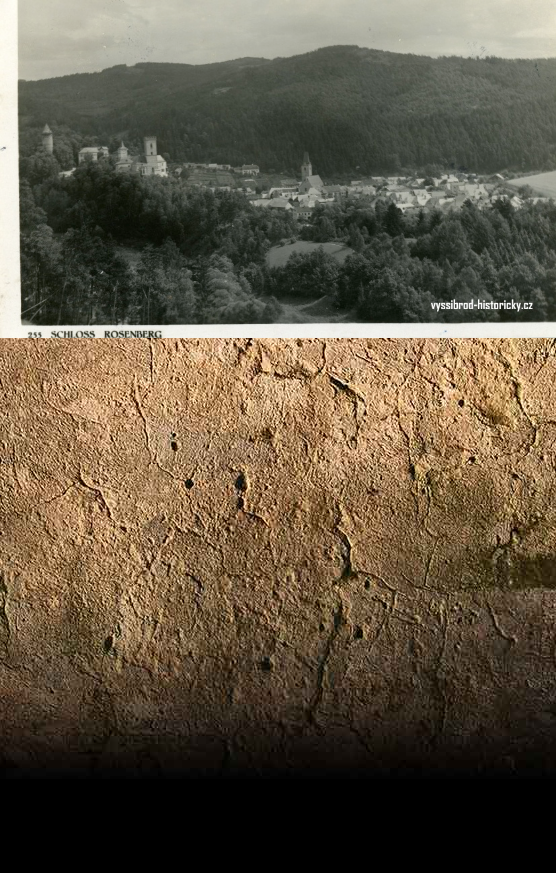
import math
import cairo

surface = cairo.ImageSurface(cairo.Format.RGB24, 556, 873)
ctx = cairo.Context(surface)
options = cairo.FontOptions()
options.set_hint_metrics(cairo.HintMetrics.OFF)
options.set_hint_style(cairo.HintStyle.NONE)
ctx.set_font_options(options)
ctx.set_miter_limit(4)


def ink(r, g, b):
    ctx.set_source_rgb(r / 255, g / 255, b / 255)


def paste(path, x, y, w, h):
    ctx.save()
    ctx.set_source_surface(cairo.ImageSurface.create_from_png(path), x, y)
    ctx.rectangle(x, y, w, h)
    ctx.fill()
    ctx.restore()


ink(0, 0, 0)
ctx.paint()
paste("pic1.png", 0, 338, 556, 441)
paste("pic2.png", 0, 0, 556, 338)
surface.write_to_png("screenshot.png")
